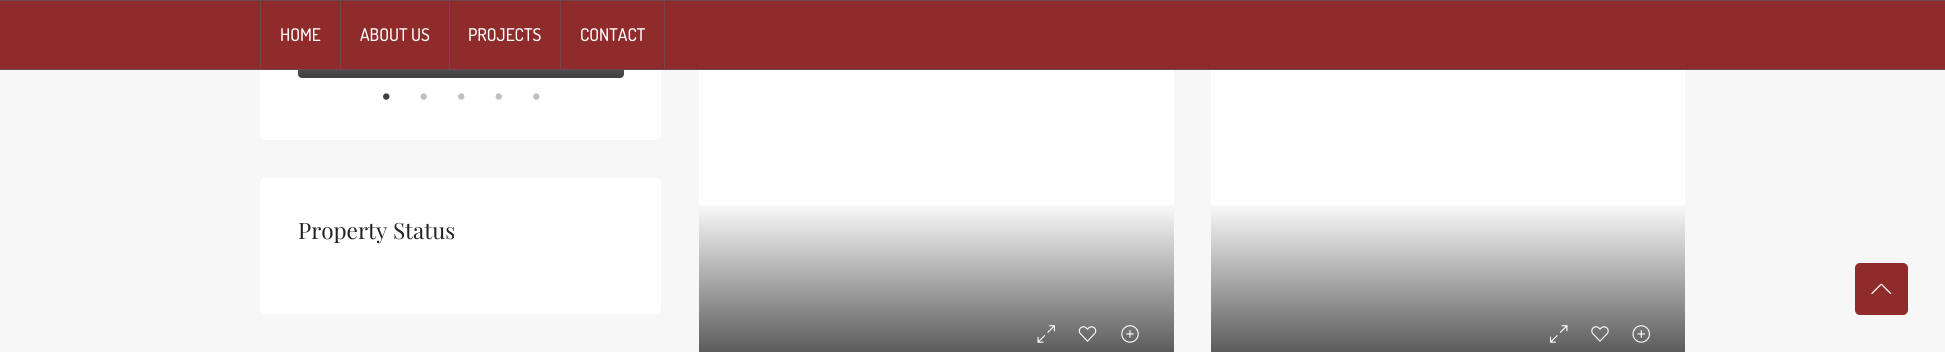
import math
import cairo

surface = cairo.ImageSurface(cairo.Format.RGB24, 1945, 352)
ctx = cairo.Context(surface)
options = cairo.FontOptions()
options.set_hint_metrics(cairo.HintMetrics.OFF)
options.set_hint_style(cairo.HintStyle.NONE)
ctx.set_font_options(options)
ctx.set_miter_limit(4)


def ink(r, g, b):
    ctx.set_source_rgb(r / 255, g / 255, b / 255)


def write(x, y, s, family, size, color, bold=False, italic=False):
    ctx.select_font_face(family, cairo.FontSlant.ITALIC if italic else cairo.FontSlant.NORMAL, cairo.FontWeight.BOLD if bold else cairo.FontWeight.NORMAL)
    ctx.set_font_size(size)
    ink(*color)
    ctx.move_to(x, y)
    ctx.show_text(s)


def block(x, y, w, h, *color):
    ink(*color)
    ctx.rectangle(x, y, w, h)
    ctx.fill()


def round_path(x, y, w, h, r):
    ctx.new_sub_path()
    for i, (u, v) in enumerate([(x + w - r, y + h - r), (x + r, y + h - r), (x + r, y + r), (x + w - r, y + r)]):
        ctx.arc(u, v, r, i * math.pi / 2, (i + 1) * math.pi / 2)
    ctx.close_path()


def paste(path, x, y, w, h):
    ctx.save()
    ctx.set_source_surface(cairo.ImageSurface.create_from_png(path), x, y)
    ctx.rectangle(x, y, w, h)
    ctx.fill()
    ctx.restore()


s1 = dict(family="Dosis Medium", size=17.5, color=(255, 255, 255))
s2 = dict(family="Playfair Display", size=22.5, color=(34, 34, 34))

ink(247, 247, 247)
ctx.paint()
ink(255, 255, 255)
round_path(260, -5, 401, 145, 5)
ctx.fill()
gradient = cairo.LinearGradient(461, -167, 461, 78)
gradient.add_color_stop_rgba(0, 1, 1, 1, 1)
gradient.add_color_stop_rgba(0.5, 1, 1, 1, 1)
gradient.add_color_stop_rgba(1, 0.251, 0.251, 0.251, 1)
ctx.set_source(gradient)
round_path(298, -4, 326, 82, 4)
ctx.fill()
block(0, 1, 1945, 68, 143, 43, 43)
block(0, 0, 1945, 1, 114, 69, 85)
block(0, 69, 1945, 1, 114, 69, 85)
block(340, 1, 1, 68, 114, 69, 85)
block(260, 1, 1, 68, 114, 69, 85)
write(280, 41, "HOME", **s1)
block(449, 1, 1, 68, 114, 69, 85)
write(360, 41, "ABOUT US", **s1)
block(560, 1, 1, 68, 114, 69, 85)
write(468, 41, "PROJECTS", **s1)
block(664, 1, 1, 68, 114, 69, 85)
write(580, 41, "CONTACT", **s1)
paste("pic1.png", 383, 93, 7, 7)
paste("pic2.png", 420, 93, 7, 7)
paste("pic3.png", 458, 93, 7, 7)
paste("pic2.png", 495, 93, 7, 7)
paste("pic3.png", 533, 93, 7, 7)
round_path(260, 178, 401, 136, 5)
ctx.fill()
write(298, 239, "Property Status", **s2)
block(699, 70, 475, 282, 255, 255, 255)
gradient = cairo.LinearGradient(936, 21, 936, 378)
gradient.add_color_stop_rgba(0, 0, 0, 0, 0)
gradient.add_color_stop_rgba(0.5, 0, 0, 0, 0)
gradient.add_color_stop_rgba(1, 0, 0, 0, 0.75)
ctx.set_source(gradient)
ctx.rectangle(699, 205, 475, 147)
ctx.fill()
paste("pic4.png", 1037, 325, 18, 18)
paste("pic5.png", 1078, 326, 19, 16)
paste("pic6.png", 1121, 325, 18, 18)
block(1211, 70, 474, 282, 255, 255, 255)
gradient = cairo.LinearGradient(1448, 21, 1448, 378)
gradient.add_color_stop_rgba(0, 0, 0, 0, 0)
gradient.add_color_stop_rgba(0.5, 0, 0, 0, 0)
gradient.add_color_stop_rgba(1, 0, 0, 0, 0.75)
ctx.set_source(gradient)
ctx.rectangle(1211, 205, 474, 147)
ctx.fill()
paste("pic7.png", 1550, 325, 18, 18)
paste("pic8.png", 1591, 326, 18, 16)
paste("pic9.png", 1632, 325, 18, 18)
ink(143, 43, 43)
round_path(1855.5, 263.5, 52, 51, 4.5)
ctx.fill_preserve()
ctx.set_line_width(1)
ctx.stroke()
paste("pic10.png", 1871, 283, 21, 12)
surface.write_to_png("screenshot.png")
